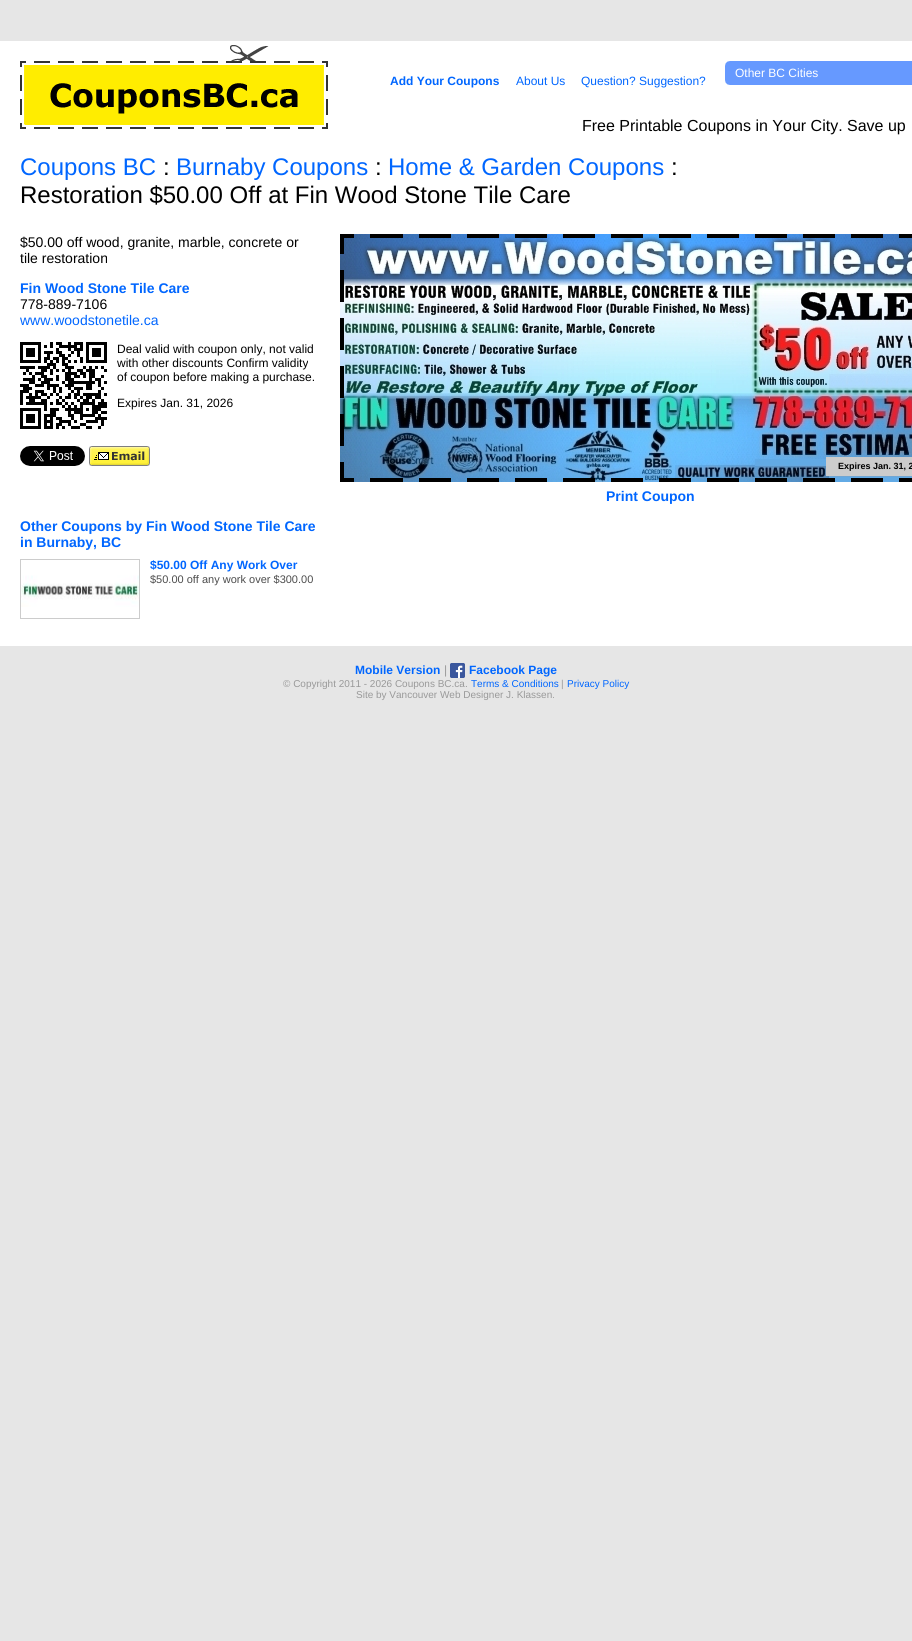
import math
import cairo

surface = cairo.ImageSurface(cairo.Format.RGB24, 912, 1641)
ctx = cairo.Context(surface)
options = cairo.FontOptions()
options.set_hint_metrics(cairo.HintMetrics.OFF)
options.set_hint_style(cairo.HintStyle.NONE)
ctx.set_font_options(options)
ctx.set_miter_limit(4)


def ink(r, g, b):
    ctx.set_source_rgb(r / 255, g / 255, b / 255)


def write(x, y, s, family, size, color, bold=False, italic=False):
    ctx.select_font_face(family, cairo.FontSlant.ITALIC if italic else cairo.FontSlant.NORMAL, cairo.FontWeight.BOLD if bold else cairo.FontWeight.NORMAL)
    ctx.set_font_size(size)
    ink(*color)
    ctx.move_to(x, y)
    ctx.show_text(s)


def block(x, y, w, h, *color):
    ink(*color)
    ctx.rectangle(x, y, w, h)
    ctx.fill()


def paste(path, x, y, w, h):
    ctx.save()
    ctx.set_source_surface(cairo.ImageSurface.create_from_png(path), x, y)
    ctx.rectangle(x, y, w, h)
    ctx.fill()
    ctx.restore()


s1 = dict(family="Liberation Sans", size=12, color=(255, 255, 255))
s2 = dict(family="Liberation Sans", size=12, color=(0, 102, 255), bold=True)
s3 = dict(family="Liberation Sans", size=12, color=(0, 102, 255))
s4 = dict(family="Liberation Sans", size=16, color=(0, 0, 0))
s5 = dict(family="Liberation Sans", size=24, color=(0, 102, 255))
s6 = dict(family="Liberation Sans", size=24, color=(0, 0, 0))
s7 = dict(family="Liberation Sans", size=14, color=(0, 0, 0))
s8 = dict(family="Liberation Sans", size=14, color=(0, 102, 255), bold=True)
s9 = dict(family="Liberation Sans", size=14, color=(0, 102, 255))
s10 = dict(family="Liberation Sans", size=12, color=(0, 0, 0))
s11 = dict(family="Liberation Sans", size=11, color=(76, 76, 76))
s12 = dict(family="Liberation Sans", size=9, color=(0, 0, 0), bold=True)
s13 = dict(family="Liberation Sans", size=12, color=(153, 153, 153))
s14 = dict(family="Liberation Sans", size=10, color=(153, 153, 153))
s15 = dict(family="Liberation Sans", size=10, color=(0, 102, 255))

ink(230, 230, 230)
ctx.paint()
block(0, 41, 912, 605, 255, 255, 255)
paste("pic1.png", 20, 45, 308, 84)
block(725, 61, 187, 24, 102, 153, 255)
paste("pic2.png", 725, 61, 5, 24)
write(735, 77, "Other BC Cities", **s1)
write(390, 85, "Add Your Coupons", **s2)
write(516, 85, "About Us", **s3)
write(581, 85, "Question? Suggestion?", **s3)
write(582, 131, "Free Printable Coupons in Your City. Save up", **s4)
write(20, 175, "Coupons BC", **s5)
write(163, 175, ":", **s6)
write(176, 175, "Burnaby Coupons", **s5)
write(375, 175, ":", **s6)
write(388, 175, "Home & Garden Coupons", **s5)
write(671, 175, ":", **s6)
write(20, 203, "Restoration $50.00 Off at Fin Wood Stone Tile Care", **s6)
write(20, 247, "$50.00 off wood, granite, marble, concrete or", **s7)
write(20, 263, "tile restoration", **s7)
write(20, 293, "Fin Wood Stone Tile Care", **s8)
write(20, 309, "778-889-7106", **s7)
write(20, 325, "www.woodstonetile.ca", **s9)
paste("pic3.png", 20, 342, 87, 87)
write(117, 353, "Deal valid with coupon only, not valid", **s10)
write(117, 367, "with other discounts Confirm validity", **s10)
write(117, 381, "of coupon before making a purchase.", **s10)
write(117, 407, "Expires Jan. 31, 2026", **s10)
paste("pic4.png", 20, 446, 65, 20)
paste("pic5.png", 89, 446, 61, 20)
write(20, 531, "Other Coupons by Fin Wood Stone Tile Care", **s8)
write(20, 547, "in Burnaby, BC", **s8)
ctx.rectangle(20.5, 559.5, 119, 59)
ink(204, 204, 204)
ctx.set_line_width(1)
ctx.stroke()
paste("pic6.png", 21, 575, 118, 32)
write(150, 569, "$50.00 Off Any Work Over", **s2)
write(150, 583, "$50.00 off any work over $300.00", **s11)
paste("pic7.png", 340, 234, 572, 248)
paste("pic8.png", 340, 234, 572, 248)
block(826, 457, 86, 19, 204, 204, 204)
write(838, 469, "Expires Jan. 31, 2", **s12)
write(606, 501, "Print Coupon", **s8)
write(355, 674, "Mobile Version", **s2)
write(444, 674, "|", **s13)
paste("pic9.png", 450, 663, 15, 15)
write(469, 674, "Facebook Page", **s2)
write(283, 687, "© Copyright 2011 - 2026 Coupons BC.ca.", **s14)
write(471, 687, "Terms & Conditions", **s15)
write(561, 687, "|", **s14)
write(567, 687, "Privacy Policy", **s15)
write(356, 698, "Site by Vancouver Web Designer J. Klassen.", **s14)
surface.write_to_png("screenshot.png")
